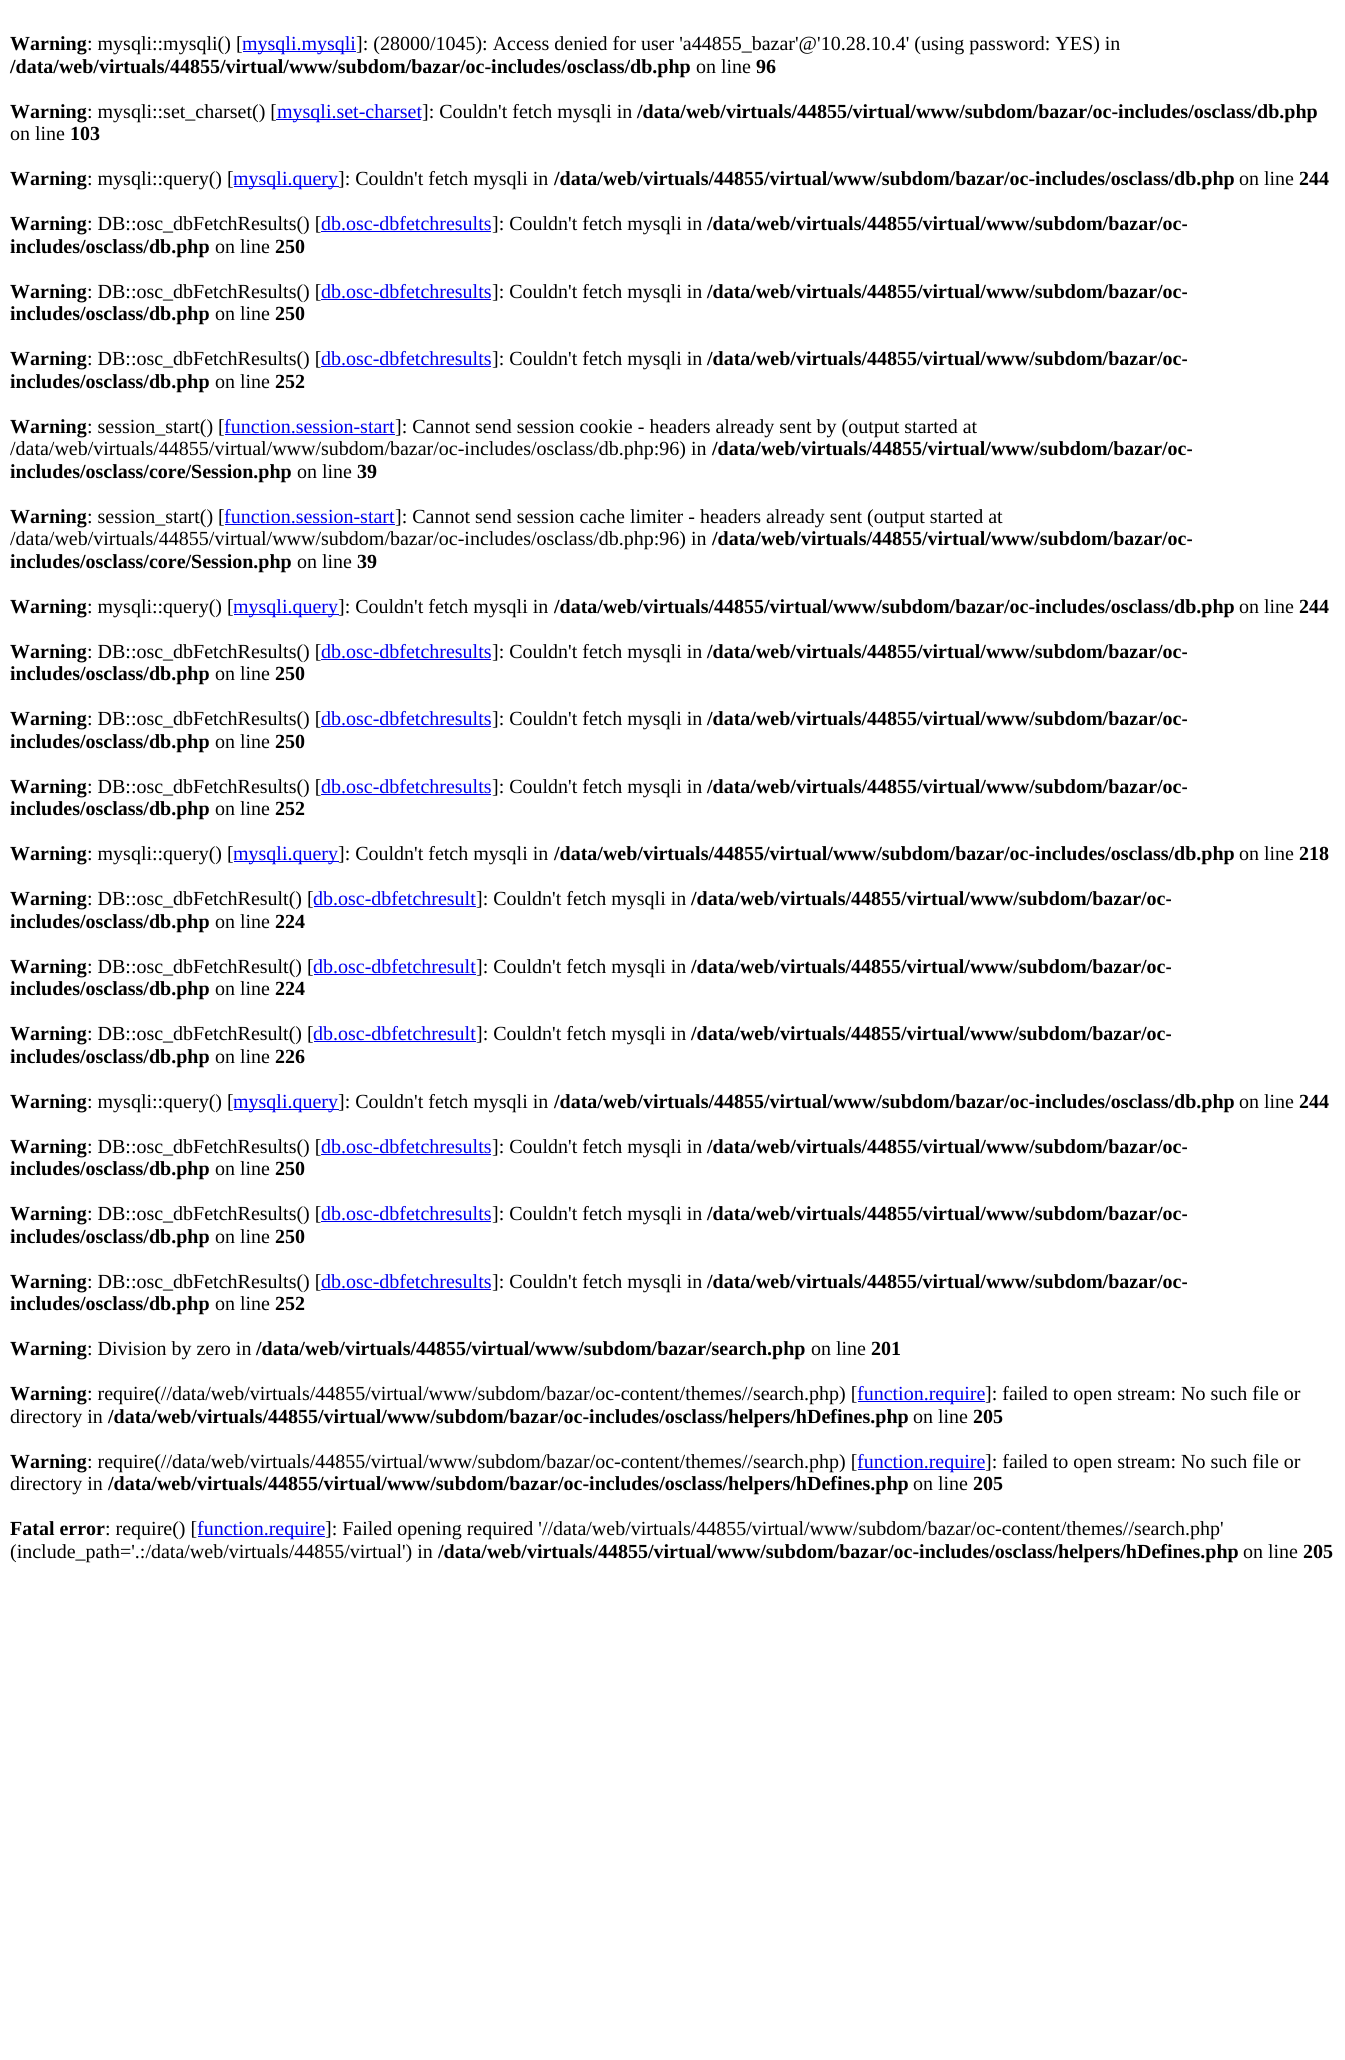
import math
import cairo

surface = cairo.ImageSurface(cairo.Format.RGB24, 1345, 2060)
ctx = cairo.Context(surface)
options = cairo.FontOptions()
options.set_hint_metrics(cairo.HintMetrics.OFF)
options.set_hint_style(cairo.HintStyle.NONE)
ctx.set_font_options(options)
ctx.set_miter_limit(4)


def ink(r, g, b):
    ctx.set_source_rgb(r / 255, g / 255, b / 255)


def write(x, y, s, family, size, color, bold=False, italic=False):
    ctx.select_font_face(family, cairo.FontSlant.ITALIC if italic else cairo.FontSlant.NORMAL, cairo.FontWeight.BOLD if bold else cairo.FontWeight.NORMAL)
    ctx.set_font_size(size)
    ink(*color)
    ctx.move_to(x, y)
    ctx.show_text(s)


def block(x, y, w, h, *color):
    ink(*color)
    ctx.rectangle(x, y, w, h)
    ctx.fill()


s1 = dict(family="Liberation Serif", size=20, color=(0, 0, 0), bold=True)
s2 = dict(family="Liberation Serif", size=20, color=(0, 0, 0))
s3 = dict(family="Liberation Serif", size=20, color=(0, 0, 238))

ink(255, 255, 255)
ctx.paint()
write(10, 50, "Warning", **s1)
write(87, 50, ": mysqli::mysqli() [", **s2)
block(243, 51, 113, 1, 0, 0, 238)
write(242, 50, "mysqli.mysqli", **s3)
write(356, 50, "]: (28000/1045): Access denied for user 'a44855_bazar'@'10.28.10.4' (using password: YES) in", **s2)
write(10, 73, "/data/web/virtuals/44855/virtual/www/subdom/bazar/oc-includes/osclass/db.php", **s1)
write(696, 73, "on line", **s2)
write(756, 73, "96", **s1)
write(10, 118, "Warning", **s1)
write(87, 118, ": mysqli::set_charset() [", **s2)
block(276, 119, 145, 1, 0, 0, 238)
write(277, 118, "mysqli.set-charset", **s3)
write(422, 118, "]: Couldn't fetch mysqli in", **s2)
write(637, 118, "/data/web/virtuals/44855/virtual/www/subdom/bazar/oc-includes/osclass/db.php", **s1)
write(10, 140, "on line", **s2)
write(70, 140, "103", **s1)
write(10, 185, "Warning", **s1)
write(87, 185, ": mysqli::query() [", **s2)
block(234, 186, 105, 1, 0, 0, 238)
write(233, 185, "mysqli.query", **s3)
write(338, 185, "]: Couldn't fetch mysqli in", **s2)
write(554, 185, "/data/web/virtuals/44855/virtual/www/subdom/bazar/oc-includes/osclass/db.php", **s1)
write(1239, 185, "on line", **s2)
write(1299, 185, "244", **s1)
write(10, 230, "Warning", **s1)
write(87, 230, ": DB::osc_dbFetchResults() [", **s2)
write(321, 230, "db.osc-dbfetchresults", **s3)
block(321, 231, 170, 1, 0, 0, 238)
write(492, 230, "]: Couldn't fetch mysqli in", **s2)
write(707, 230, "/data/web/virtuals/44855/virtual/www/subdom/bazar/oc-", **s1)
write(10, 253, "includes/osclass/db.php", **s1)
write(215, 253, "on line", **s2)
write(275, 253, "250", **s1)
write(10, 298, "Warning", **s1)
write(87, 298, ": DB::osc_dbFetchResults() [", **s2)
write(321, 298, "db.osc-dbfetchresults", **s3)
block(321, 299, 170, 1, 0, 0, 238)
write(492, 298, "]: Couldn't fetch mysqli in", **s2)
write(707, 298, "/data/web/virtuals/44855/virtual/www/subdom/bazar/oc-", **s1)
write(10, 320, "includes/osclass/db.php", **s1)
write(215, 320, "on line", **s2)
write(275, 320, "250", **s1)
write(10, 365, "Warning", **s1)
write(87, 365, ": DB::osc_dbFetchResults() [", **s2)
write(321, 365, "db.osc-dbfetchresults", **s3)
block(321, 366, 170, 1, 0, 0, 238)
write(492, 365, "]: Couldn't fetch mysqli in", **s2)
write(707, 365, "/data/web/virtuals/44855/virtual/www/subdom/bazar/oc-", **s1)
write(10, 388, "includes/osclass/db.php", **s1)
write(215, 388, "on line", **s2)
write(275, 388, "252", **s1)
write(10, 433, "Warning", **s1)
write(87, 433, ": session_start() [", **s2)
write(224, 433, "function.session-start", **s3)
block(225, 434, 170, 1, 0, 0, 238)
write(395, 433, "]: Cannot send session cookie - headers already sent by (output started at", **s2)
write(10, 455, "/data/web/virtuals/44855/virtual/www/subdom/bazar/oc-includes/osclass/db.php:96) in", **s2)
write(712, 455, "/data/web/virtuals/44855/virtual/www/subdom/bazar/oc-", **s1)
write(10, 478, "includes/osclass/core/Session.php", **s1)
write(297, 478, "on line", **s2)
write(357, 478, "39", **s1)
write(10, 523, "Warning", **s1)
write(87, 523, ": session_start() [", **s2)
write(224, 523, "function.session-start", **s3)
block(225, 524, 170, 1, 0, 0, 238)
write(395, 523, "]: Cannot send session cache limiter - headers already sent (output started at", **s2)
write(10, 545, "/data/web/virtuals/44855/virtual/www/subdom/bazar/oc-includes/osclass/db.php:96) in", **s2)
write(712, 545, "/data/web/virtuals/44855/virtual/www/subdom/bazar/oc-", **s1)
write(10, 568, "includes/osclass/core/Session.php", **s1)
write(297, 568, "on line", **s2)
write(357, 568, "39", **s1)
write(10, 613, "Warning", **s1)
write(87, 613, ": mysqli::query() [", **s2)
block(234, 614, 105, 1, 0, 0, 238)
write(233, 613, "mysqli.query", **s3)
write(338, 613, "]: Couldn't fetch mysqli in", **s2)
write(554, 613, "/data/web/virtuals/44855/virtual/www/subdom/bazar/oc-includes/osclass/db.php", **s1)
write(1239, 613, "on line", **s2)
write(1299, 613, "244", **s1)
write(10, 658, "Warning", **s1)
write(87, 658, ": DB::osc_dbFetchResults() [", **s2)
write(321, 658, "db.osc-dbfetchresults", **s3)
block(321, 659, 170, 1, 0, 0, 238)
write(492, 658, "]: Couldn't fetch mysqli in", **s2)
write(707, 658, "/data/web/virtuals/44855/virtual/www/subdom/bazar/oc-", **s1)
write(10, 680, "includes/osclass/db.php", **s1)
write(215, 680, "on line", **s2)
write(275, 680, "250", **s1)
write(10, 725, "Warning", **s1)
write(87, 725, ": DB::osc_dbFetchResults() [", **s2)
write(321, 725, "db.osc-dbfetchresults", **s3)
block(321, 726, 170, 1, 0, 0, 238)
write(492, 725, "]: Couldn't fetch mysqli in", **s2)
write(707, 725, "/data/web/virtuals/44855/virtual/www/subdom/bazar/oc-", **s1)
write(10, 748, "includes/osclass/db.php", **s1)
write(215, 748, "on line", **s2)
write(275, 748, "250", **s1)
write(10, 793, "Warning", **s1)
write(87, 793, ": DB::osc_dbFetchResults() [", **s2)
write(321, 793, "db.osc-dbfetchresults", **s3)
block(321, 794, 170, 1, 0, 0, 238)
write(492, 793, "]: Couldn't fetch mysqli in", **s2)
write(707, 793, "/data/web/virtuals/44855/virtual/www/subdom/bazar/oc-", **s1)
write(10, 815, "includes/osclass/db.php", **s1)
write(215, 815, "on line", **s2)
write(275, 815, "252", **s1)
write(10, 860, "Warning", **s1)
write(87, 860, ": mysqli::query() [", **s2)
block(234, 861, 105, 1, 0, 0, 238)
write(233, 860, "mysqli.query", **s3)
write(338, 860, "]: Couldn't fetch mysqli in", **s2)
write(554, 860, "/data/web/virtuals/44855/virtual/www/subdom/bazar/oc-includes/osclass/db.php", **s1)
write(1239, 860, "on line", **s2)
write(1299, 860, "218", **s1)
write(10, 905, "Warning", **s1)
write(87, 905, ": DB::osc_dbFetchResult() [", **s2)
write(313, 905, "db.osc-dbfetchresult", **s3)
block(314, 906, 162, 1, 0, 0, 238)
write(476, 905, "]: Couldn't fetch mysqli in", **s2)
write(691, 905, "/data/web/virtuals/44855/virtual/www/subdom/bazar/oc-", **s1)
write(10, 928, "includes/osclass/db.php", **s1)
write(215, 928, "on line", **s2)
write(275, 928, "224", **s1)
write(10, 973, "Warning", **s1)
write(87, 973, ": DB::osc_dbFetchResult() [", **s2)
write(313, 973, "db.osc-dbfetchresult", **s3)
block(314, 974, 162, 1, 0, 0, 238)
write(476, 973, "]: Couldn't fetch mysqli in", **s2)
write(691, 973, "/data/web/virtuals/44855/virtual/www/subdom/bazar/oc-", **s1)
write(10, 995, "includes/osclass/db.php", **s1)
write(215, 995, "on line", **s2)
write(275, 995, "224", **s1)
write(10, 1040, "Warning", **s1)
write(87, 1040, ": DB::osc_dbFetchResult() [", **s2)
write(313, 1040, "db.osc-dbfetchresult", **s3)
block(314, 1041, 162, 1, 0, 0, 238)
write(476, 1040, "]: Couldn't fetch mysqli in", **s2)
write(691, 1040, "/data/web/virtuals/44855/virtual/www/subdom/bazar/oc-", **s1)
write(10, 1063, "includes/osclass/db.php", **s1)
write(215, 1063, "on line", **s2)
write(275, 1063, "226", **s1)
write(10, 1108, "Warning", **s1)
write(87, 1108, ": mysqli::query() [", **s2)
block(234, 1109, 105, 1, 0, 0, 238)
write(233, 1108, "mysqli.query", **s3)
write(338, 1108, "]: Couldn't fetch mysqli in", **s2)
write(554, 1108, "/data/web/virtuals/44855/virtual/www/subdom/bazar/oc-includes/osclass/db.php", **s1)
write(1239, 1108, "on line", **s2)
write(1299, 1108, "244", **s1)
write(10, 1153, "Warning", **s1)
write(87, 1153, ": DB::osc_dbFetchResults() [", **s2)
write(321, 1153, "db.osc-dbfetchresults", **s3)
block(321, 1154, 170, 1, 0, 0, 238)
write(492, 1153, "]: Couldn't fetch mysqli in", **s2)
write(707, 1153, "/data/web/virtuals/44855/virtual/www/subdom/bazar/oc-", **s1)
write(10, 1175, "includes/osclass/db.php", **s1)
write(215, 1175, "on line", **s2)
write(275, 1175, "250", **s1)
write(10, 1220, "Warning", **s1)
write(87, 1220, ": DB::osc_dbFetchResults() [", **s2)
write(321, 1220, "db.osc-dbfetchresults", **s3)
block(321, 1221, 170, 1, 0, 0, 238)
write(492, 1220, "]: Couldn't fetch mysqli in", **s2)
write(707, 1220, "/data/web/virtuals/44855/virtual/www/subdom/bazar/oc-", **s1)
write(10, 1243, "includes/osclass/db.php", **s1)
write(215, 1243, "on line", **s2)
write(275, 1243, "250", **s1)
write(10, 1288, "Warning", **s1)
write(87, 1288, ": DB::osc_dbFetchResults() [", **s2)
write(321, 1288, "db.osc-dbfetchresults", **s3)
block(321, 1289, 170, 1, 0, 0, 238)
write(492, 1288, "]: Couldn't fetch mysqli in", **s2)
write(707, 1288, "/data/web/virtuals/44855/virtual/www/subdom/bazar/oc-", **s1)
write(10, 1310, "includes/osclass/db.php", **s1)
write(215, 1310, "on line", **s2)
write(275, 1310, "252", **s1)
write(10, 1355, "Warning", **s1)
write(87, 1355, ": Division by zero in", **s2)
write(256, 1355, "/data/web/virtuals/44855/virtual/www/subdom/bazar/search.php", **s1)
write(811, 1355, "on line", **s2)
write(871, 1355, "201", **s1)
write(10, 1400, "Warning", **s1)
write(87, 1400, ": require(//data/web/virtuals/44855/virtual/www/subdom/bazar/oc-content/themes//search.php) [", **s2)
block(858, 1401, 127, 1, 0, 0, 238)
write(857, 1400, "function.require", **s3)
write(985, 1400, "]: failed to open stream: No such file or", **s2)
write(10, 1423, "directory in", **s2)
write(108, 1423, "/data/web/virtuals/44855/virtual/www/subdom/bazar/oc-includes/osclass/helpers/hDefines.php", **s1)
write(913, 1423, "on line", **s2)
write(973, 1423, "205", **s1)
write(10, 1468, "Warning", **s1)
write(87, 1468, ": require(//data/web/virtuals/44855/virtual/www/subdom/bazar/oc-content/themes//search.php) [", **s2)
block(858, 1469, 127, 1, 0, 0, 238)
write(857, 1468, "function.require", **s3)
write(985, 1468, "]: failed to open stream: No such file or", **s2)
write(10, 1490, "directory in", **s2)
write(108, 1490, "/data/web/virtuals/44855/virtual/www/subdom/bazar/oc-includes/osclass/helpers/hDefines.php", **s1)
write(913, 1490, "on line", **s2)
write(973, 1490, "205", **s1)
write(10, 1535, "Fatal error", **s1)
write(105, 1535, ": require() [", **s2)
block(198, 1536, 127, 1, 0, 0, 238)
write(197, 1535, "function.require", **s3)
write(325, 1535, "]: Failed opening required '//data/web/virtuals/44855/virtual/www/subdom/bazar/oc-content/themes//search.php'", **s2)
write(10, 1558, "(include_path='.:/data/web/virtuals/44855/virtual') in", **s2)
write(438, 1558, "/data/web/virtuals/44855/virtual/www/subdom/bazar/oc-includes/osclass/helpers/hDefines.php", **s1)
write(1243, 1558, "on line", **s2)
write(1303, 1558, "205", **s1)
surface.write_to_png("screenshot.png")
